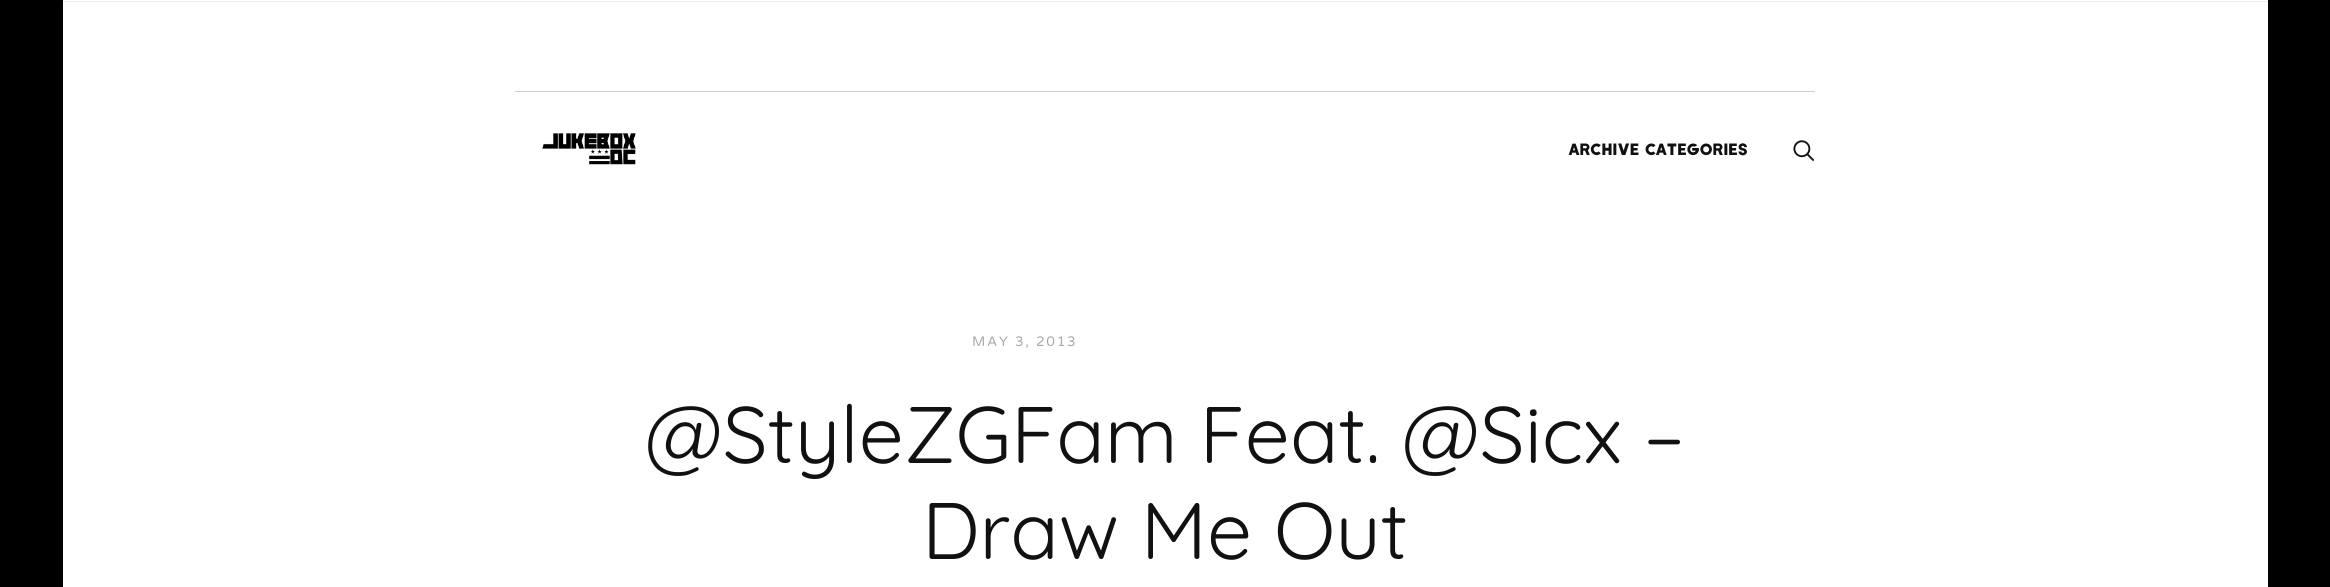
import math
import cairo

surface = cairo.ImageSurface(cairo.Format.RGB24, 2330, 587)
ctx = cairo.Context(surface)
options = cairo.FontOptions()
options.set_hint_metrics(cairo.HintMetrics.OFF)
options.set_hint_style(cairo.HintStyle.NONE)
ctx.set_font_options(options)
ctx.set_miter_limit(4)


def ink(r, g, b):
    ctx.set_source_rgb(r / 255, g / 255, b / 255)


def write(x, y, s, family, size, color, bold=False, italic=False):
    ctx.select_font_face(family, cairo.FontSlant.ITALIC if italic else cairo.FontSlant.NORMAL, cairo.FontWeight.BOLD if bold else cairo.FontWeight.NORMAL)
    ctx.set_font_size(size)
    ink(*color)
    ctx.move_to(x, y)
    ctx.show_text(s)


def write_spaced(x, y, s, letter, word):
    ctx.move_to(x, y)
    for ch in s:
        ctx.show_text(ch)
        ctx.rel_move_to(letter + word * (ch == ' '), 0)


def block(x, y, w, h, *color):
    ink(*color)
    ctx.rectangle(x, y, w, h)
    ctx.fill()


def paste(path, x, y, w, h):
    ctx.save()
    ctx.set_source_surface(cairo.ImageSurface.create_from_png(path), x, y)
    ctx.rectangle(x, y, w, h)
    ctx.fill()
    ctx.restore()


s1 = dict(family="Quicksand Light", size=80, color=(17, 17, 17))

ink(0, 0, 0)
ctx.paint()
block(63, 0, 2205, 587, 255, 255, 255)
block(63, 1, 2205, 1, 238, 238, 238)
block(515, 91, 1300, 1, 204, 204, 204)
paste("pic1.png", 542, 133, 94, 32)
ctx.select_font_face("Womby")
ctx.set_font_size(16.25)
ink(17, 17, 17)
write_spaced(1569, 155, "ARCHIVE CATEGORIES", 0.6, 0)
paste("pic2.png", 1793, 140, 21, 21)
ctx.select_font_face("Varela Round")
ctx.set_font_size(13.75)
ink(170, 170, 170)
write_spaced(972, 346, "MAY 3, 2013", 1.75, 0)
write(645, 463, "@StyleZGFam Feat. @Sicx –", **s1)
write(922, 559, "Draw Me Out", **s1)
surface.write_to_png("screenshot.png")
